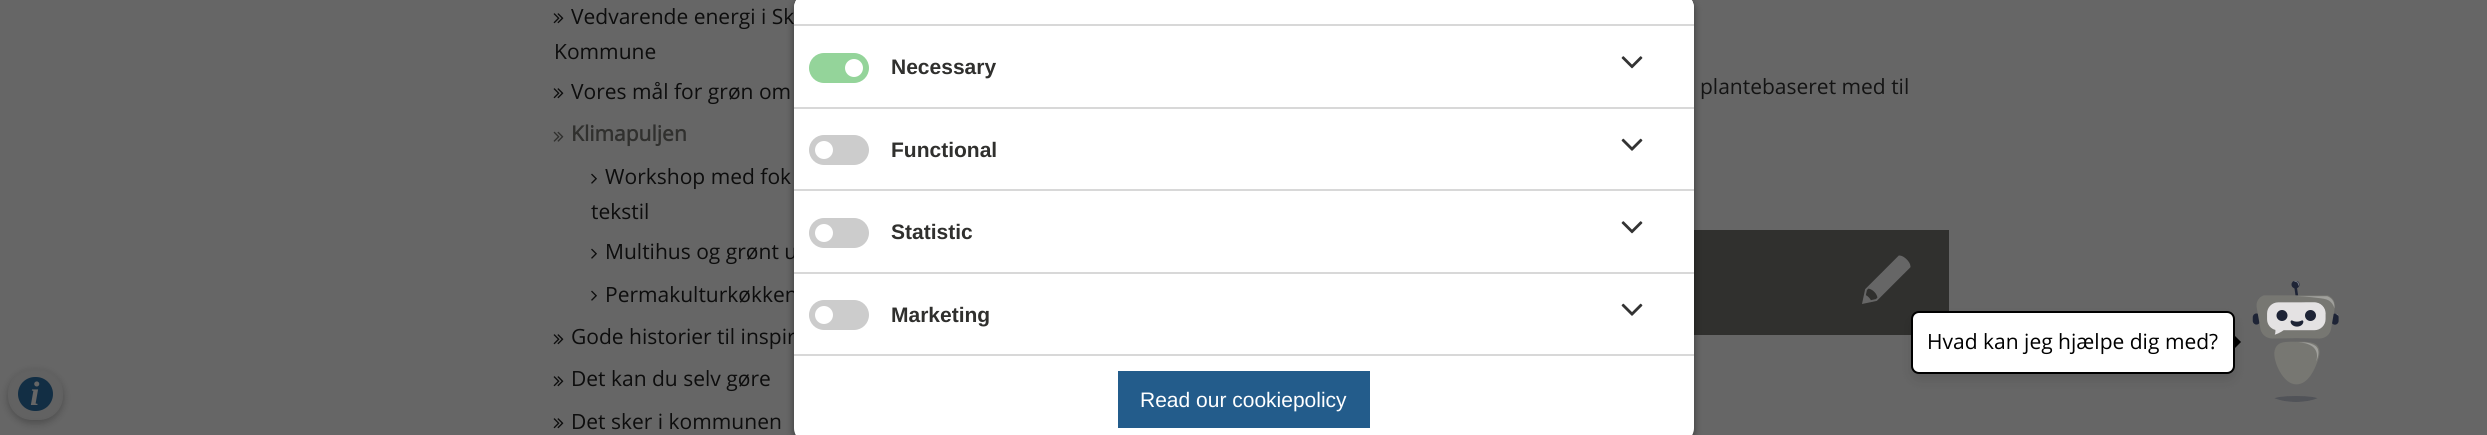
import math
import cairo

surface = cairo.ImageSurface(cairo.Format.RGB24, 2487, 435)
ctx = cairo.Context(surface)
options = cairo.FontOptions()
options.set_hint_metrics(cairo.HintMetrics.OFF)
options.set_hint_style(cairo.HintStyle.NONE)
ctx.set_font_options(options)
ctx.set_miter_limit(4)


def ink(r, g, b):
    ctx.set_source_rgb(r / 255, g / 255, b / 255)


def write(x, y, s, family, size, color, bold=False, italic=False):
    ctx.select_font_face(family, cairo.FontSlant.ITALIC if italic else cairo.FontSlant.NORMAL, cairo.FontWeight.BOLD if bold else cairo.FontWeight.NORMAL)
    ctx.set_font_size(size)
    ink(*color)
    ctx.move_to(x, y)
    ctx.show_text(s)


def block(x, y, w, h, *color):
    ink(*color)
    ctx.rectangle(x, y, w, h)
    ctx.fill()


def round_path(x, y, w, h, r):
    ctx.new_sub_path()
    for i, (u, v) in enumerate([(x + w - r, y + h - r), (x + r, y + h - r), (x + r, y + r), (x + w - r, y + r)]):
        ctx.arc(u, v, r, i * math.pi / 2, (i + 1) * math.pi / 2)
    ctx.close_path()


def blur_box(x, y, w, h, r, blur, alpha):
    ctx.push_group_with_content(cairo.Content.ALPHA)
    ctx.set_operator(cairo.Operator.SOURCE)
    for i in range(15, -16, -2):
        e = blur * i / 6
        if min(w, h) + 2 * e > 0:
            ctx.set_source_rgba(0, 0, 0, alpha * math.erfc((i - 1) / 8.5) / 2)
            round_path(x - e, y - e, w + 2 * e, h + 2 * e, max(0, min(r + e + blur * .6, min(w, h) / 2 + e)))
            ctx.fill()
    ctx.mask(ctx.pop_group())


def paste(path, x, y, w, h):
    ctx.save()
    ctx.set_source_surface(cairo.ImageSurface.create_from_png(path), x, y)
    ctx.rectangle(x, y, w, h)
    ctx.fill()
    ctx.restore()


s1 = dict(family="Open Sans", size=21, color=(13, 13, 13))
s2 = dict(family="Open Sans", size=21, color=(48, 48, 46), bold=True)
s3 = dict(family="Open Sans", size=21, color=(20, 20, 20))
s4 = dict(family="Liberation Sans", size=21, color=(48, 48, 46), bold=True)
s5 = dict(family="Liberation Sans", size=21, color=(255, 255, 255))
s6 = dict(family="Open Sans", size=21, color=(0, 0, 0))
s7 = dict(family="Liberation Serif", size=34, color=(102, 102, 102), bold=True, italic=True)

ink(102, 102, 102)
ctx.paint()
paste("pic1.png", 553, 13, 11, 11)
write(571, 24, "Vedvarende energi i Sk", **s1)
write(554, 59, "Kommune", **s1)
paste("pic1.png", 553, 88, 11, 11)
write(571, 99, "Vores mål for grøn om", **s1)
paste("pic2.png", 553, 131, 11, 11)
write(571, 141, "Klimapuljen", **s2)
paste("pic3.png", 591, 173, 6, 11)
write(605, 184, "Workshop med fok", **s1)
write(591, 219, "tekstil", **s1)
paste("pic3.png", 591, 248, 6, 11)
write(605, 259, "Multihus og grønt u", **s1)
paste("pic3.png", 591, 290, 6, 11)
write(605, 302, "Permakulturkøkken", **s1)
paste("pic1.png", 553, 334, 11, 11)
write(571, 344, "Gode historier til inspir", **s1)
paste("pic1.png", 553, 376, 11, 11)
write(571, 386, "Det kan du selv gøre", **s1)
paste("pic1.png", 553, 418, 11, 11)
write(571, 429, "Det sker i kommunen", **s1)
write(1700, 94, "plantebaseret med til", **s3)
block(1694, 230, 255, 105, 48, 48, 46)
paste("pic4.png", 1862, 255, 49, 49)
ink(0, 0, 0)
blur_box(794, -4, 900, 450, 15, 4, 0.46)
ink(255, 255, 255)
round_path(794, -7, 900, 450, 15)
ctx.fill()
ctx.new_path()
ctx.move_to(809, -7)
ctx.line_to(1679, -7)
ctx.curve_to(1687.5, -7, 1694, -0.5, 1694, 8)
ctx.line_to(1694, 26)
ctx.line_to(794, 26)
ctx.line_to(794, 8)
ctx.curve_to(794, -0.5, 800.5, -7, 809, -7)
ctx.close_path()
ctx.fill()
block(794, 24, 900, 2, 216, 216, 216)
block(794, 107, 900, 2, 216, 216, 216)
ink(148, 212, 154)
round_path(809, 53, 60, 30, 15)
ctx.fill()
ink(255, 255, 255)
ctx.arc(854, 68, 9, 0, 2 * math.pi)
ctx.fill()
write(891, 74, "Necessary", **s4)
paste("pic5.png", 1621, 56, 22, 13)
block(794, 189, 900, 2, 216, 216, 216)
ink(204, 204, 204)
round_path(809, 135, 60, 30, 15)
ctx.fill()
ink(255, 255, 255)
ctx.arc(824, 150, 9, 0, 2 * math.pi)
ctx.fill()
write(891, 157, "Functional", **s4)
paste("pic6.png", 1621, 138, 22, 13)
block(794, 272, 900, 2, 216, 216, 216)
ink(204, 204, 204)
round_path(809, 218, 60, 30, 15)
ctx.fill()
ink(255, 255, 255)
ctx.arc(824, 233, 9, 0, 2 * math.pi)
ctx.fill()
write(891, 239, "Statistic", **s4)
paste("pic5.png", 1621, 221, 22, 13)
block(794, 354, 900, 2, 216, 216, 216)
ink(204, 204, 204)
round_path(809, 300, 60, 30, 15)
ctx.fill()
ink(255, 255, 255)
ctx.arc(824, 315, 9, 0, 2 * math.pi)
ctx.fill()
write(891, 322, "Marketing", **s4)
paste("pic6.png", 1621, 303, 22, 13)
block(1118, 371, 252, 57, 35, 92, 139)
write(1140, 407, "Read our cookiepolicy", **s5)
paste("pic7.png", 2252, 281, 87, 121)
ink(0, 0, 0)
blur_box(1911, 317, 324, 63, 8, 6, 0.1)
ink(255, 255, 255)
round_path(1912, 312, 322, 61, 7)
ctx.fill_preserve()
ink(0, 0, 0)
ctx.stroke()
write(1927, 349, "Hvad kan jeg hjælpe dig med?", **s6)
ctx.new_path()
ctx.move_to(2233.5, 349.5)
ctx.line_to(2233.5, 334.5)
ctx.line_to(2241, 342)
ctx.close_path()
ctx.fill()
ink(0, 0, 0)
blur_box(8, 372, 55, 51, 24, 4, 0.26)
ink(98, 98, 98)
round_path(9, 370, 53, 49, 23)
ctx.fill_preserve()
ink(97, 97, 97)
ctx.stroke()
ink(18, 46, 68)
round_path(18, 377, 35, 34, 17)
ctx.fill()
write(30, 405, "i", **s7)
surface.write_to_png("screenshot.png")
